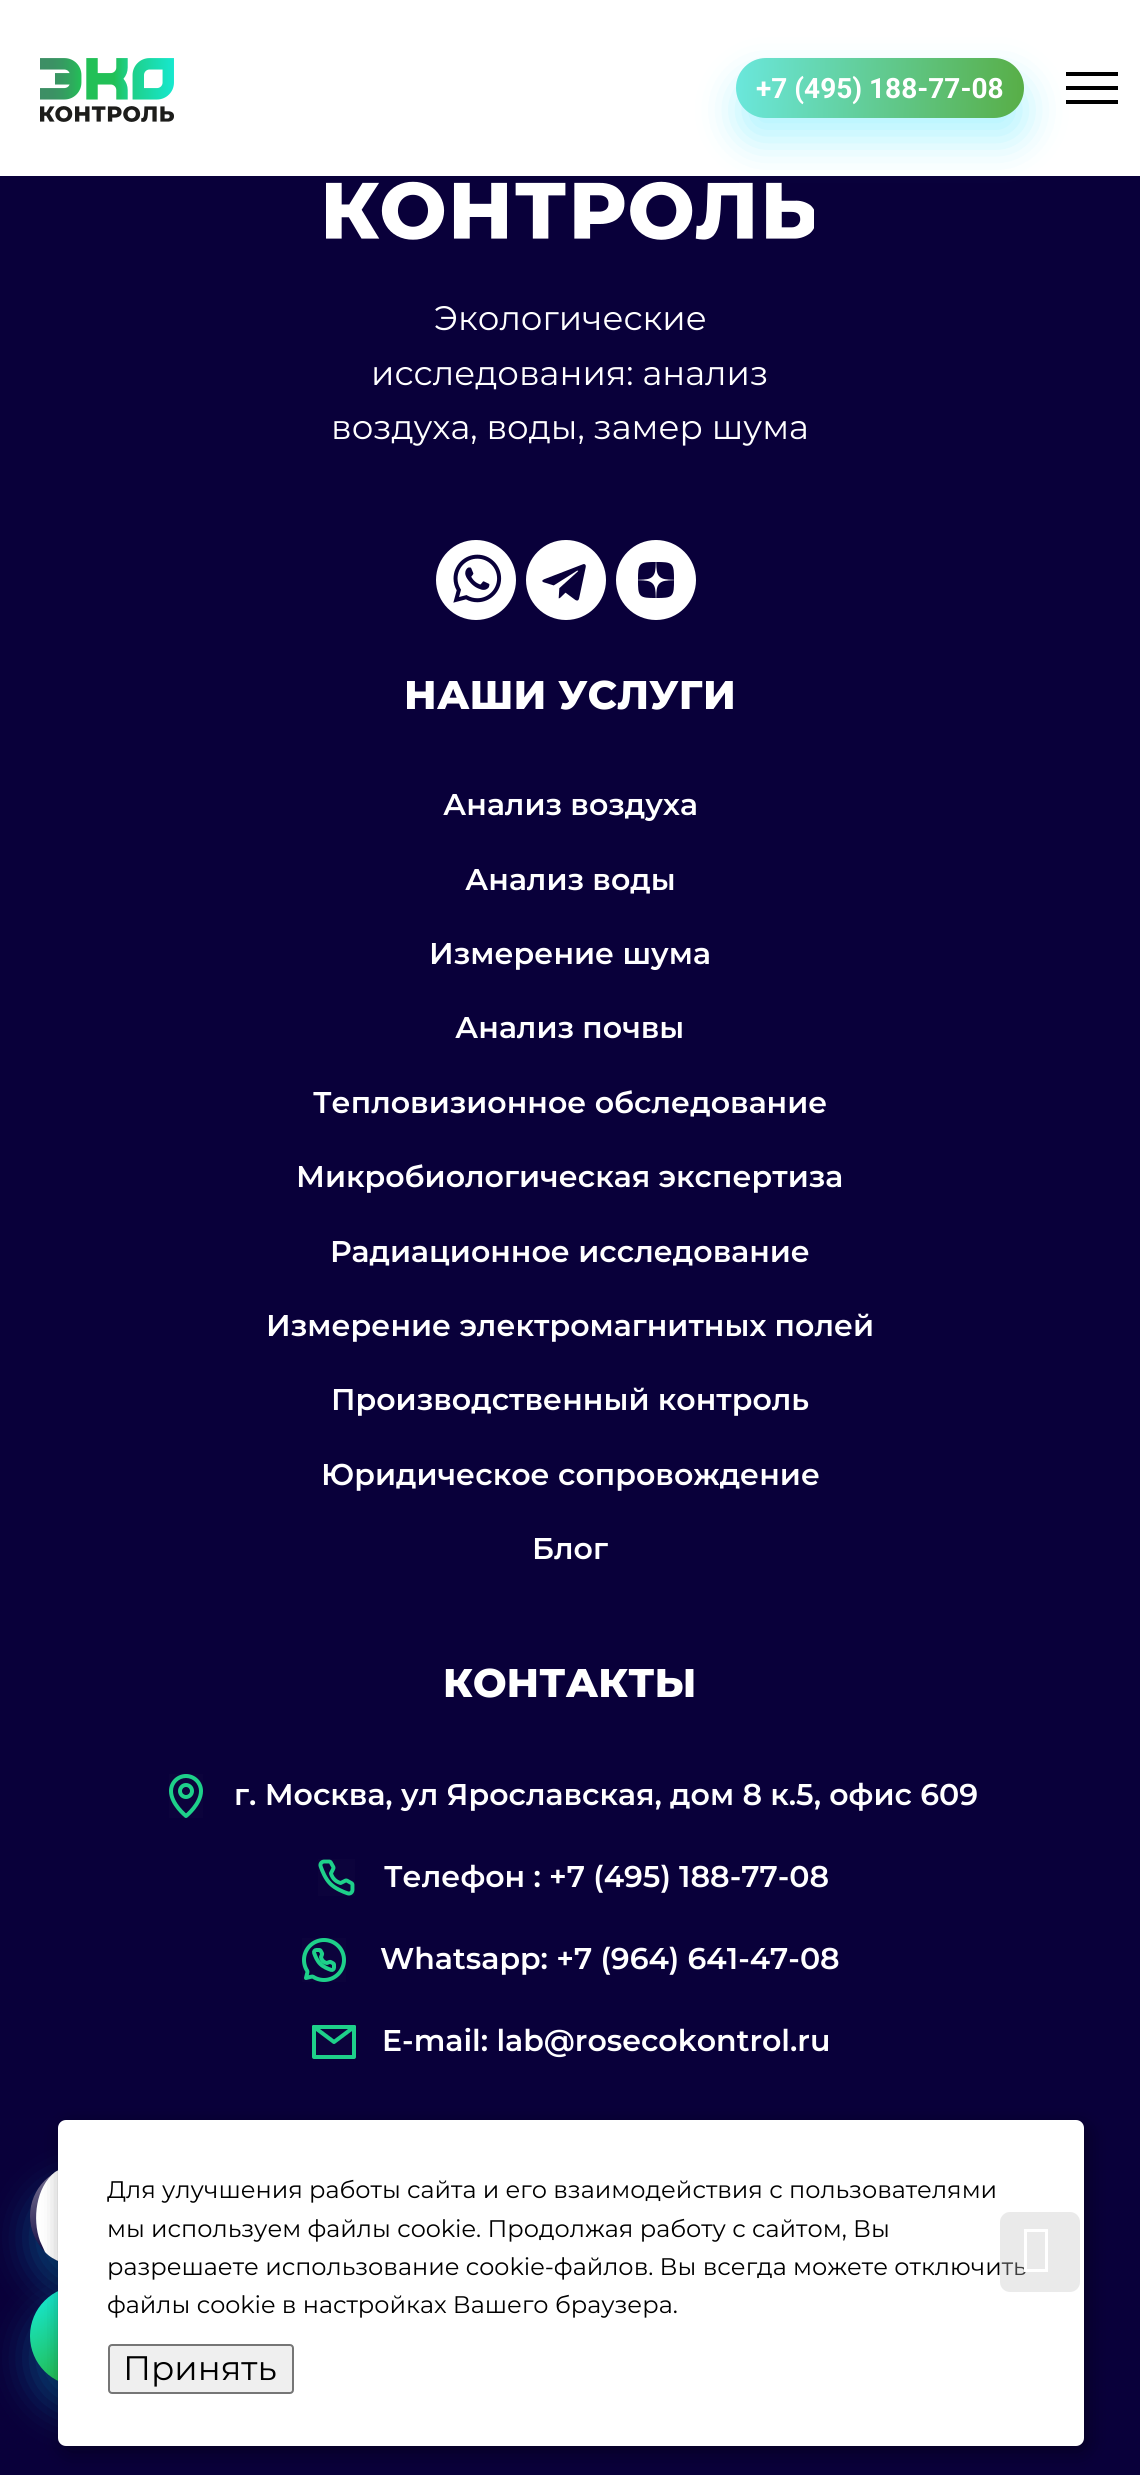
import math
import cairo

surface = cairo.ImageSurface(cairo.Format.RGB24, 1140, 2475)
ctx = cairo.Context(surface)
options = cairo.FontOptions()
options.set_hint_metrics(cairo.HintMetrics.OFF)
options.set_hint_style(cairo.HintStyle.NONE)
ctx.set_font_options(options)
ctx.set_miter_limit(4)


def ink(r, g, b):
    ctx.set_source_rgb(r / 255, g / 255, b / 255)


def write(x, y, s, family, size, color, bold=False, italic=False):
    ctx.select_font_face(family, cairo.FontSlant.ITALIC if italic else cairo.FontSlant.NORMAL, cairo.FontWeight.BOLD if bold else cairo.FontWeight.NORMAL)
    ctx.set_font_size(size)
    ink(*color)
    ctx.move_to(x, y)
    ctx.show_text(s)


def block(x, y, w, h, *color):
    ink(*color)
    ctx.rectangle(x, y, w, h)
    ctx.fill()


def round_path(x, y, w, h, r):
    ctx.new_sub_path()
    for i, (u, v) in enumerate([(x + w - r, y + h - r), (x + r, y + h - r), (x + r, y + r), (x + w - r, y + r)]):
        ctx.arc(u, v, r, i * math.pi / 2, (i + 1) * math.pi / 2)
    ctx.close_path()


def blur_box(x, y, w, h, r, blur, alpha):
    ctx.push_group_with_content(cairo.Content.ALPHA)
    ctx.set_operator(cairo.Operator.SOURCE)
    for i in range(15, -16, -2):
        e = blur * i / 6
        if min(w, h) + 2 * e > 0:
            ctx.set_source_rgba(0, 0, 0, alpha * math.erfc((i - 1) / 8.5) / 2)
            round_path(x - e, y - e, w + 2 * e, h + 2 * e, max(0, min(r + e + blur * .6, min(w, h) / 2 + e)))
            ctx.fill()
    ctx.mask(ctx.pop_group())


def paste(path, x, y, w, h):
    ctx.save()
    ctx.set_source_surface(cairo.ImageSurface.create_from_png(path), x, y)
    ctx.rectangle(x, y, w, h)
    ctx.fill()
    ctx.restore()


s1 = dict(family="Roboto", size=28, color=(255, 255, 255), bold=True)
s2 = dict(family="Montserrat", size=34, color=(255, 255, 255))
s3 = dict(family="Montserrat ExtraBold", size=40, color=(255, 255, 255))
s4 = dict(family="Montserrat SemiBold", size=30, color=(255, 255, 255))
s5 = dict(family="Montserrat", size=24, color=(0, 0, 0))
s6 = dict(family="Montserrat", size=34, color=(0, 0, 0))

ink(9, 0, 58)
ctx.paint()
block(0, 0, 1140, 176, 255, 255, 255)
paste("pic1.png", 40, 58, 134, 64)
block(1066, 72, 52, 4, 0, 0, 0)
block(1066, 86, 52, 4, 0, 0, 0)
block(1066, 100, 52, 4, 0, 0, 0)
paste("pic2.png", 326, 181, 488, 59)
ink(0, 219, 255)
blur_box(738, 80, 288, 60, 30, 20, 0.3)
gradient = cairo.LinearGradient(735, 82, 1025, 94)
gradient.add_color_stop_rgba(0, 0.416, 0.906, 0.863, 1)
gradient.add_color_stop_rgba(1, 0.345, 0.682, 0.275, 1)
ctx.set_source(gradient)
round_path(736, 58, 288, 60, 30)
ctx.fill()
write(756, 98, "+7 (495) 188-77-08", **s1)
write(434, 330, "Экологические", **s2)
write(371, 385, "исследования: анализ", **s2)
write(331, 439, "воздуха, воды, замер шума", **s2)
paste("pic3.png", 436, 540, 80, 80)
paste("pic4.png", 526, 540, 80, 80)
paste("pic5.png", 616, 540, 80, 80)
write(404, 709, "НАШИ УСЛУГИ", **s3)
write(443, 815, "Анализ воздуха", **s4)
write(465, 890, "Анализ воды", **s4)
write(429, 964, "Измерение шума", **s4)
write(455, 1038, "Анализ почвы", **s4)
write(313, 1113, "Тепловизионное обследование", **s4)
write(296, 1187, "Микробиологическая экспертиза", **s4)
write(330, 1262, "Радиационное исследование", **s4)
write(266, 1336, "Измерение электромагнитных полей", **s4)
write(331, 1410, "Производственный контроль", **s4)
write(321, 1485, "Юридическое сопровождение", **s4)
write(532, 1559, "Блог", **s4)
write(443, 1697, "КОНТАКТЫ", **s3)
paste("pic6.png", 169, 1774, 34, 44)
write(234, 1805, "г. Москва, ул Ярославская, дом 8 к.5, офис 609", **s4)
paste("pic7.png", 318, 1859, 37, 37)
write(384, 1887, "Телефон : +7 (495) 188-77-08", **s4)
paste("pic8.png", 302, 1938, 44, 44)
write(380, 1969, "Whatsapp: +7 (964) 641-47-08", **s4)
paste("pic9.png", 312, 2025, 44, 34)
write(382, 2051, "E-mail: lab@rosecokontrol.ru", **s4)
ctx.save()
ctx.set_fill_rule(cairo.FillRule.EVEN_ODD)
ctx.new_path()
ctx.move_to(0, 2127)
ctx.line_to(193, 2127)
ctx.line_to(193, 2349)
ctx.line_to(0, 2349)
ctx.close_path()
ctx.move_to(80, 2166)
ctx.curve_to(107.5, 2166, 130, 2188.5, 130, 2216)
ctx.curve_to(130, 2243.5, 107.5, 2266, 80, 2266)
ctx.curve_to(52.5, 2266, 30, 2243.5, 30, 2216)
ctx.curve_to(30, 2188.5, 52.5, 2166, 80, 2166)
ctx.close_path()
ctx.clip()
ink(0, 219, 255)
blur_box(32, 2188, 100, 100, 50, 20, 0.3)
ctx.restore()
ctx.new_path()
ctx.move_to(80, 2166)
ctx.curve_to(84, 2166, 91, 2166, 94, 2168)
ctx.curve_to(120, 2183, 126, 2220, 114, 2246)
ctx.curve_to(112, 2251, 109, 2256, 105, 2259)
ctx.curve_to(100, 2264, 86, 2266, 80, 2266)
ctx.curve_to(69, 2266, 53, 2261, 45, 2252)
ctx.line_to(40, 2241)
ctx.curve_to(32, 2219, 36, 2187, 55, 2172)
ctx.curve_to(61, 2168, 73, 2166, 80, 2166)
ctx.close_path()
ctx.fill()
gradient = cairo.LinearGradient(108, 2276, 52, 2156)
gradient.add_color_stop_rgba(0.3, 1, 1, 1, 0)
gradient.add_color_stop_rgba(1, 1, 1, 1, 0.5)
ctx.set_source(gradient)
ctx.arc(80, 2216, 50, 0, 2 * math.pi)
ctx.fill()
ink(0, 219, 255)
blur_box(32, 2308, 100, 100, 50, 20, 0.3)
gradient = cairo.LinearGradient(108, 2396, 52, 2276)
gradient.add_color_stop_rgba(0, 0.161, 0.682, 0.125, 1)
gradient.add_color_stop_rgba(1, 0.078, 0.933, 0.89, 1)
ctx.set_source(gradient)
ctx.arc(80, 2336, 50, 0, 2 * math.pi)
ctx.fill()
ink(0, 0, 0)
blur_box(62, 2126, 1026, 326, 8, 10, 0.4)
ink(255, 255, 255)
round_path(58, 2120, 1026, 326, 8)
ctx.fill()
write(107, 2198, "Для улучшения работы сайта и его взаимодействия с пользователями", **s5)
write(107, 2237, "мы используем файлы cookie. Продолжая работу с сайтом, Вы", **s5)
write(107, 2275, "разрешаете использование cookie-файлов. Вы всегда можете отключить", **s5)
write(107, 2313, "файлы cookie в настройках Вашего браузера.", **s5)
ink(239, 239, 239)
round_path(109, 2345, 184, 48, 3)
ctx.fill_preserve()
ink(118, 118, 118)
ctx.stroke()
write(123, 2380, "Принять", **s6)
ctx.set_source_rgba(0.749, 0.749, 0.749, 0.33)
round_path(1000, 2212, 80, 80, 10)
ctx.fill()
ink(255, 255, 255)
ctx.new_path()
ctx.move_to(1024, 2272)
ctx.line_to(1024, 2229)
ctx.line_to(1048, 2229)
ctx.line_to(1048, 2272)
ctx.close_path()
ctx.move_to(1027, 2269)
ctx.line_to(1045, 2269)
ctx.line_to(1045, 2232)
ctx.line_to(1027, 2232)
ctx.close_path()
ctx.fill()
surface.write_to_png("screenshot.png")
